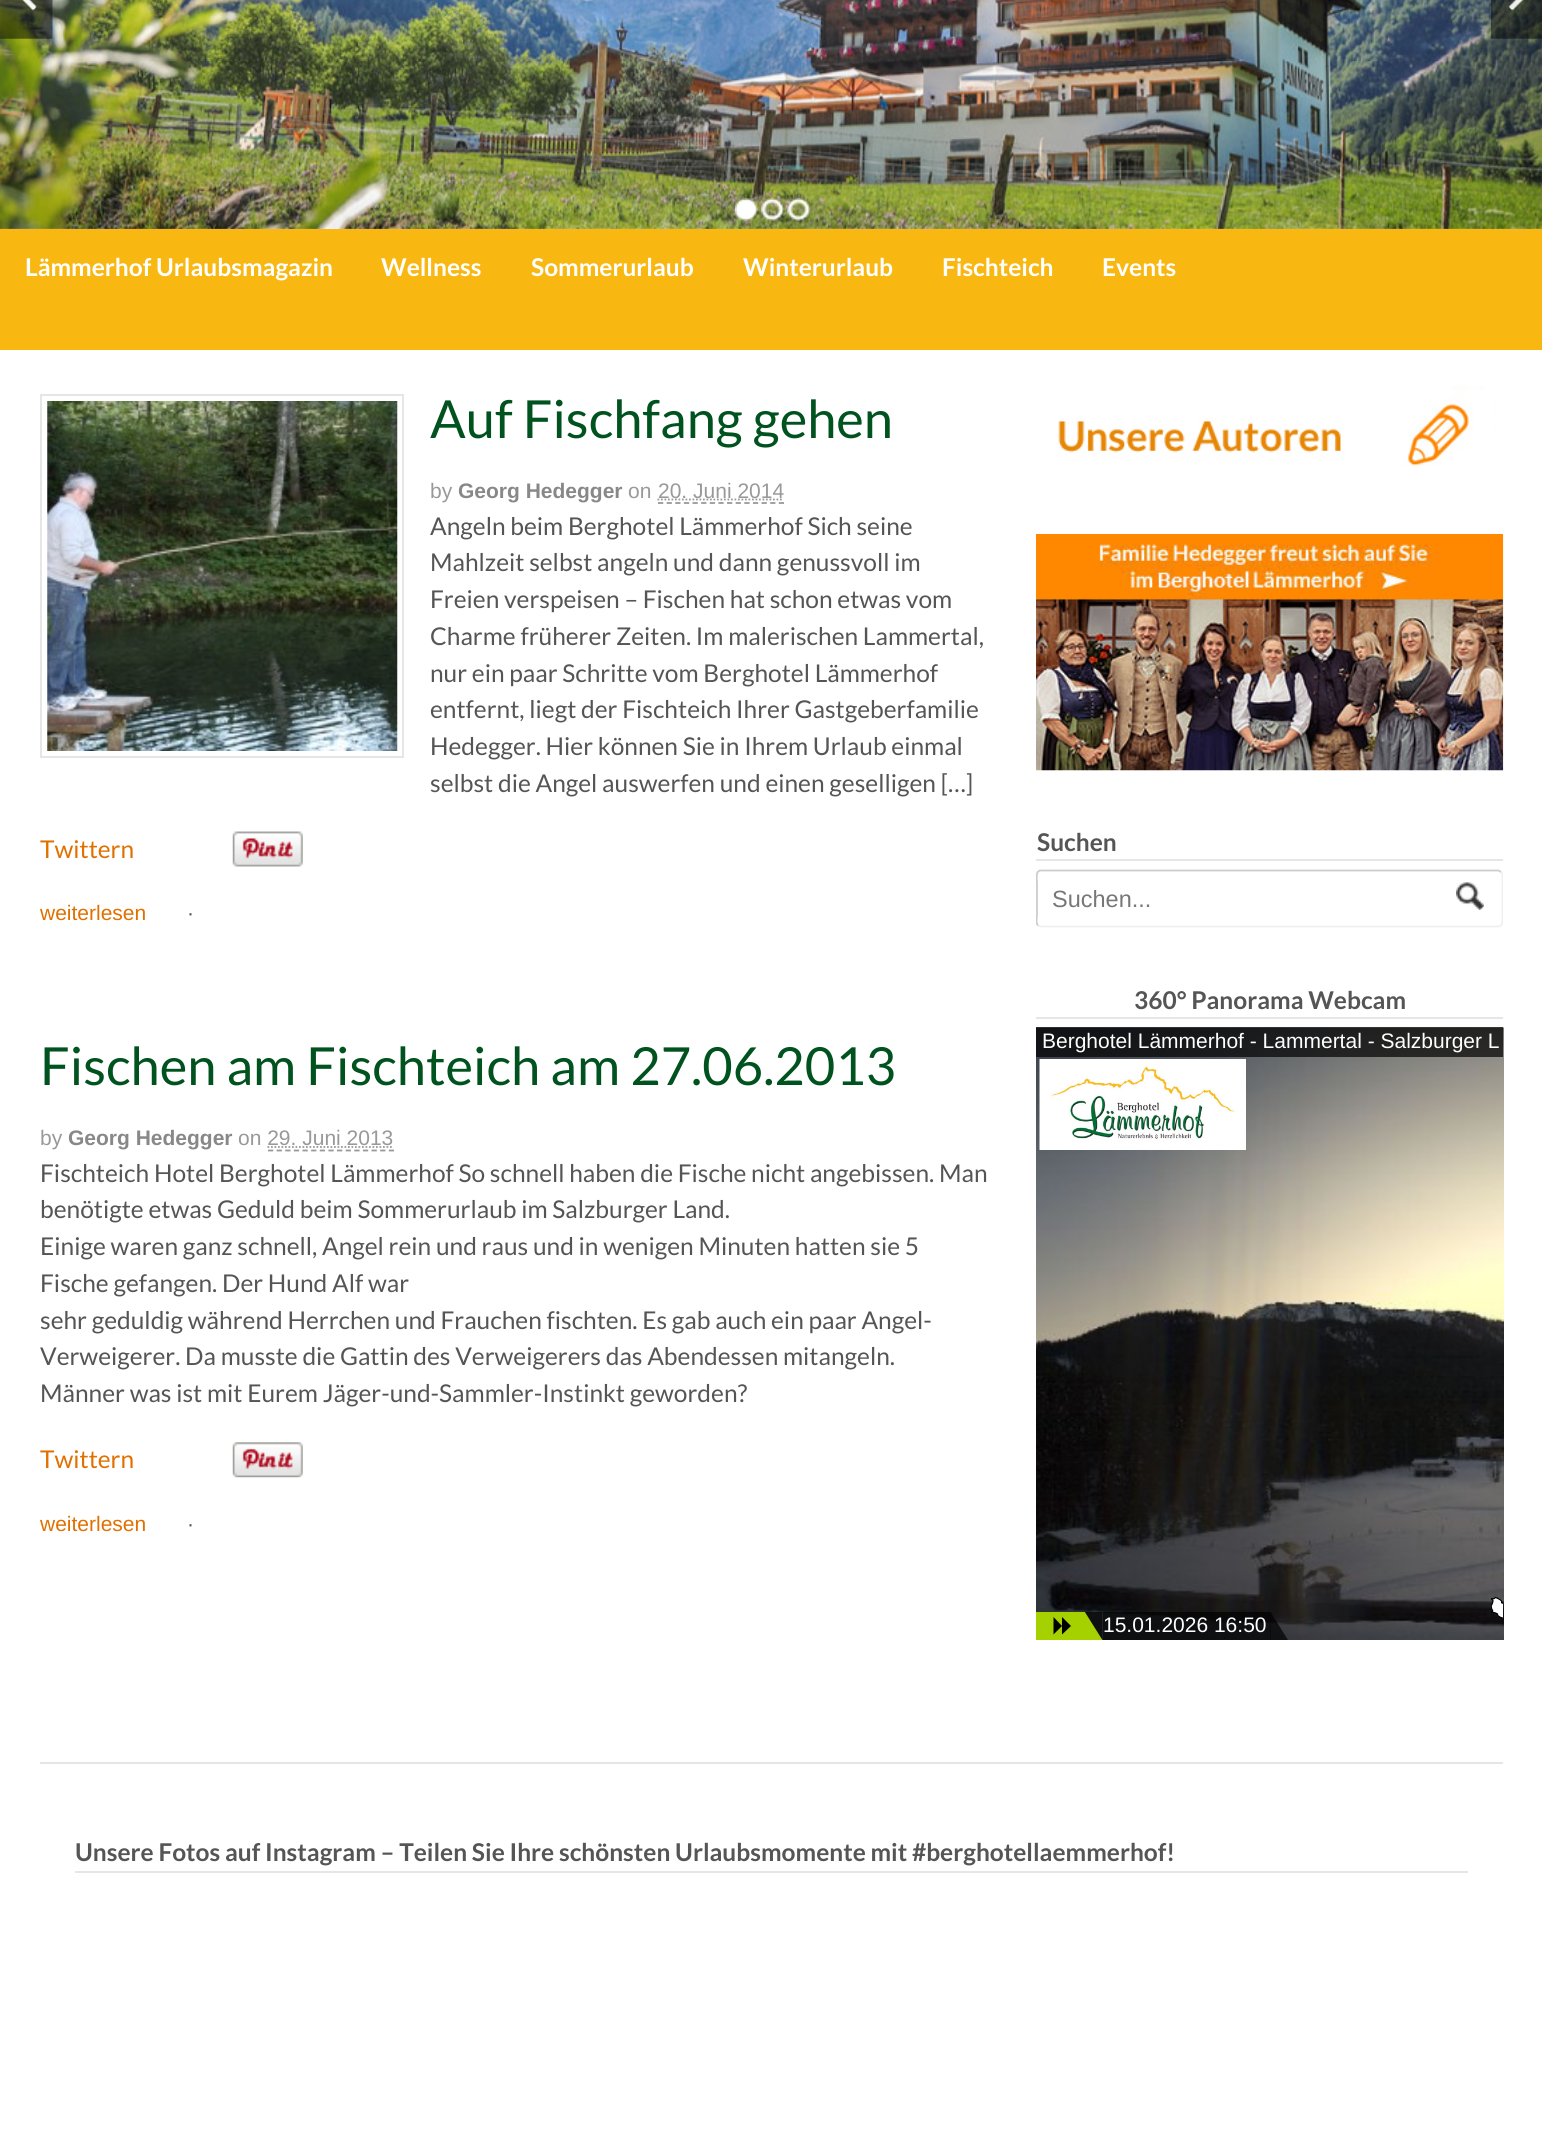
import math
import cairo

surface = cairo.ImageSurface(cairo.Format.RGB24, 1542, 2130)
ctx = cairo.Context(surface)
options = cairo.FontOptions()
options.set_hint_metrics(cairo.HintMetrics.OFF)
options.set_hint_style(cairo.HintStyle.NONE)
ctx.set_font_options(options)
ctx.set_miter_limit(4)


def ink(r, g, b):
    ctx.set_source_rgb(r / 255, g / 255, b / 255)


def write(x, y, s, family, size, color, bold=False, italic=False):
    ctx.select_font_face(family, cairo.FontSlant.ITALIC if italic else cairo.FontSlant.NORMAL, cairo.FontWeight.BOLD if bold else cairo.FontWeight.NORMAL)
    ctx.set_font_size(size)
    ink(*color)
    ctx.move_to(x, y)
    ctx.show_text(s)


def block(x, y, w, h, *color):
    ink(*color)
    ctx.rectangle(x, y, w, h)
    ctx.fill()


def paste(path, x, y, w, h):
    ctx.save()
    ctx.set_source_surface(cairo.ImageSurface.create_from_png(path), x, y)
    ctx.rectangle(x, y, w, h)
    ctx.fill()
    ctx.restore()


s1 = dict(family="Lato", size=24.5, color=(255, 255, 255), bold=True)
s2 = dict(family="Lato", size=52.5, color=(0, 82, 31))
s3 = dict(family="Liberation Sans", size=21, color=(153, 153, 153))
s4 = dict(family="Liberation Sans", size=21, color=(136, 136, 136), bold=True)
s5 = dict(family="Lato", size=24.5, color=(85, 85, 85))
s6 = dict(family="Lato", size=24.5, color=(224, 112, 0))
s7 = dict(family="Liberation Sans", size=21, color=(224, 112, 0))
s8 = dict(family="Liberation Sans", size=21, color=(85, 85, 85))
s9 = dict(family="Lato", size=24.5, color=(85, 85, 85), bold=True)
s10 = dict(family="Liberation Sans", size=23.5, color=(119, 119, 119))
s11 = dict(family="Liberation Sans", size=21, color=(255, 255, 255))

ink(255, 255, 255)
ctx.paint()
paste("pic1.png", 0, 0, 1542, 229)
paste("pic2.png", 0, 0, 53, 39)
paste("pic3.png", 1491, 0, 51, 39)
paste("pic4.png", 735, 198, 23, 23)
paste("pic5.png", 761, 198, 23, 23)
paste("pic6.png", 787, 198, 24, 23)
block(0, 229, 1542, 121, 248, 183, 17)
write(25, 276, "Lämmerhof Urlaubsmagazin", **s1)
write(381, 276, "Wellness", **s1)
write(531, 276, "Sommerurlaub", **s1)
write(743, 276, "Winterurlaub", **s1)
write(942, 276, "Fischteich", **s1)
write(1102, 276, "Events", **s1)
ctx.rectangle(41, 395, 362, 362)
ink(230, 230, 230)
ctx.stroke()
paste("pic7.png", 47, 401, 351, 350)
write(430, 438, "Auf Fischfang gehen", **s2)
write(430, 498, "by", **s3)
write(458, 498, "Georg Hedegger", **s4)
write(628, 498, "on", **s3)
ctx.new_path()
ctx.move_to(657.5, 499.5)
ctx.line_to(783.5, 499.5)
ctx.set_line_width(1.8)
ctx.set_dash([1.75, 1.75])
ctx.stroke()
write(658, 498, "20. Juni 2014", **s3)
ctx.new_path()
ctx.move_to(658, 503)
ctx.line_to(784, 503)
ctx.set_dash([5.25, 3.38])
ctx.stroke()
write(430, 535, "Angeln beim Berghotel Lämmerhof Sich seine", **s5)
write(430, 571, "Mahlzeit selbst angeln und dann genussvoll im", **s5)
write(430, 608, "Freien verspeisen – Fischen hat schon etwas vom", **s5)
write(430, 645, "Charme früherer Zeiten. Im malerischen Lammertal,", **s5)
write(430, 682, "nur ein paar Schritte vom Berghotel Lämmerhof", **s5)
write(430, 718, "entfernt, liegt der Fischteich Ihrer Gastgeberfamilie", **s5)
write(430, 755, "Hedegger. Hier können Sie in Ihrem Urlaub einmal", **s5)
write(430, 792, "selbst die Angel auswerfen und einen geselligen […]", **s5)
write(40, 858, "Twittern", **s6)
paste("pic8.png", 232, 831, 71, 36)
write(40, 920, "weiterlesen", **s7)
write(187, 920, "·", **s8)
write(40, 1085, "Fischen am Fischteich am 27.06.2013", **s2)
write(40, 1145, "by", **s3)
write(68, 1145, "Georg Hedegger", **s4)
write(238, 1145, "on 29. Juni 2013", **s3)
ctx.new_path()
ctx.move_to(267.5, 1147)
ctx.line_to(393.5, 1147)
ctx.set_dash([1.75, 1.75])
ctx.stroke()
ctx.new_path()
ctx.move_to(268, 1150.5)
ctx.line_to(394, 1150.5)
ctx.set_dash([5.25, 3.38])
ctx.stroke()
write(40, 1182, "Fischteich Hotel Berghotel Lämmerhof So schnell haben die Fische nicht angebissen. Man", **s5)
write(40, 1218, "benötigte etwas Geduld beim Sommerurlaub im Salzburger Land.", **s5)
write(40, 1255, "Einige waren ganz schnell, Angel rein und raus und in wenigen Minuten hatten sie 5", **s5)
write(40, 1292, "Fische gefangen. Der Hund Alf war", **s5)
write(40, 1329, "sehr geduldig während Herrchen und Frauchen fischten. Es gab auch ein paar Angel-", **s5)
write(40, 1365, "Verweigerer. Da musste die Gattin des Verweigerers das Abendessen mitangeln.", **s5)
write(40, 1402, "Männer was ist mit Eurem Jäger-und-Sammler-Instinkt geworden?", **s5)
write(40, 1468, "Twittern", **s6)
paste("pic9.png", 232, 1442, 71, 36)
write(40, 1531, "weiterlesen", **s7)
write(187, 1531, "·", **s8)
paste("pic10.png", 1058, 385, 437, 81)
paste("pic11.png", 1036, 534, 468, 237)
block(1036, 859, 467, 2, 230, 230, 230)
write(1037, 851, "Suchen", **s9)
ctx.save()
ctx.rectangle(1036, 385, 467, 1307)
ctx.clip()
ctx.new_path()
ctx.move_to(1501, 872)
ctx.curve_to(1503.5, 874.5, 1502.5, 881, 1502.5, 883)
ctx.line_to(1502.5, 914.5)
ctx.curve_to(1502.5, 917.5, 1504, 926.5, 1498, 926.5)
ctx.line_to(1041, 926.5)
ctx.line_to(1038, 925.5)
ink(239, 239, 239)
ctx.set_dash([])
ctx.stroke()
ctx.new_path()
ctx.move_to(1038, 925.5)
ctx.curve_to(1035.5, 923, 1037, 916.5, 1037, 914.5)
ctx.line_to(1037, 883)
ctx.curve_to(1037, 879.5, 1035, 870.5, 1041, 870.5)
ctx.line_to(1498.5, 870.5)
ctx.line_to(1501, 872)
ink(204, 204, 204)
ctx.stroke()
ctx.restore()
write(1052, 907, "Suchen...", **s10)
paste("pic12.png", 1456, 882, 28, 28)
block(1036, 1017, 467, 2, 230, 230, 230)
write(1134, 1009, "360° Panorama Webcam", **s9)
paste("pic13.png", 1036, 1027, 468, 613)
ctx.set_source_rgba(0, 0, 0, 0.7)
ctx.rectangle(1036, 1027, 467, 30)
ctx.fill()
write(1042, 1048, "Berghotel Lämmerhof - Lammertal - Salzburger L", **s11)
paste("pic14.png", 1039, 1059, 207, 91)
paste("pic15.png", 1491, 1596, 12, 23)
block(1036, 1612, 49, 28, 166, 209, 0)
ink(0, 0, 0)
ctx.new_path()
ctx.move_to(1053.5, 1634.5)
ctx.line_to(1053.5, 1617)
ctx.line_to(1062, 1626)
ctx.close_path()
ctx.move_to(1062, 1634.5)
ctx.line_to(1062, 1617)
ctx.line_to(1071, 1626)
ctx.close_path()
ctx.fill()
ink(166, 209, 0)
ctx.new_path()
ctx.move_to(1102.5, 1640)
ctx.line_to(1085, 1640)
ctx.line_to(1085, 1612)
ctx.close_path()
ctx.fill()
ctx.set_source_rgba(0, 0, 0, 0.7)
ctx.rectangle(1103, 1612, 168, 28)
ctx.fill()
ctx.new_path()
ctx.move_to(1085, 1612)
ctx.line_to(1102.5, 1612)
ctx.line_to(1102.5, 1640)
ctx.close_path()
ctx.fill()
write(1103, 1632, "15.01.2026 16:50", **s11)
ctx.set_source_rgba(0, 0, 0, 0.7)
ctx.new_path()
ctx.move_to(1288, 1640)
ctx.line_to(1270.5, 1640)
ctx.line_to(1270.5, 1612)
ctx.close_path()
ctx.fill()
block(40, 1762, 1463, 2, 230, 230, 230)
block(75, 1871, 1393, 2, 230, 230, 230)
write(75, 1861, "Unsere Fotos auf Instagram – Teilen Sie Ihre schönsten Urlaubsmomente mit #berghotellaemmerhof!", **s9)
surface.write_to_png("screenshot.png")
